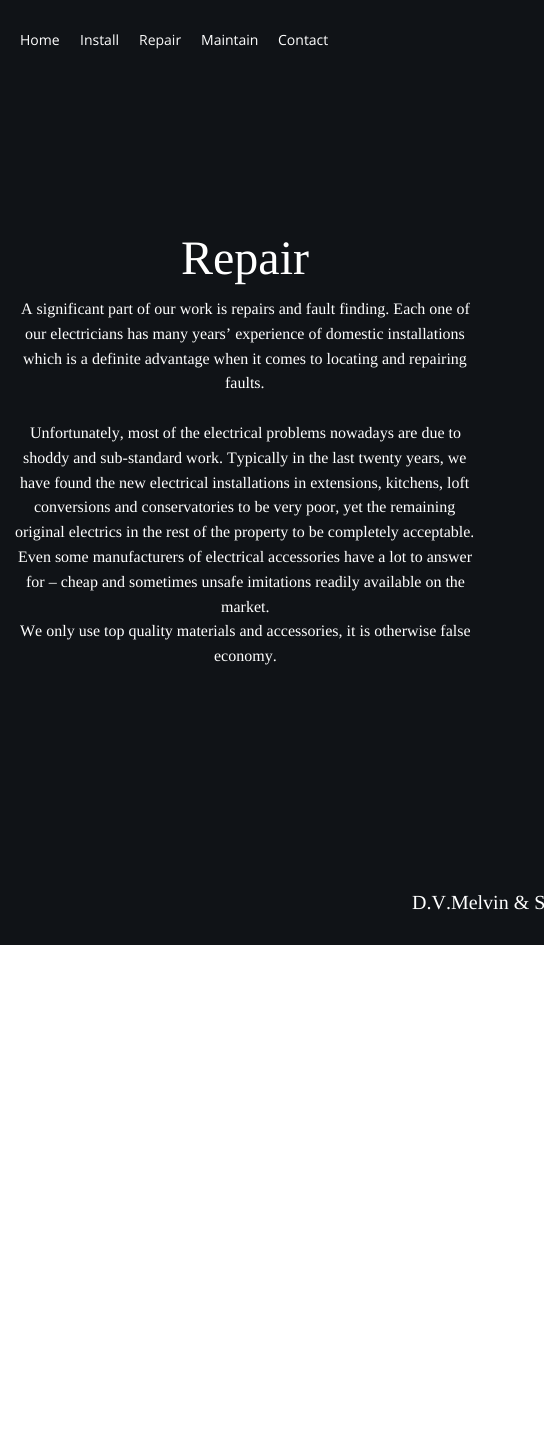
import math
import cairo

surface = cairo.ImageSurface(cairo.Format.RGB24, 544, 1451)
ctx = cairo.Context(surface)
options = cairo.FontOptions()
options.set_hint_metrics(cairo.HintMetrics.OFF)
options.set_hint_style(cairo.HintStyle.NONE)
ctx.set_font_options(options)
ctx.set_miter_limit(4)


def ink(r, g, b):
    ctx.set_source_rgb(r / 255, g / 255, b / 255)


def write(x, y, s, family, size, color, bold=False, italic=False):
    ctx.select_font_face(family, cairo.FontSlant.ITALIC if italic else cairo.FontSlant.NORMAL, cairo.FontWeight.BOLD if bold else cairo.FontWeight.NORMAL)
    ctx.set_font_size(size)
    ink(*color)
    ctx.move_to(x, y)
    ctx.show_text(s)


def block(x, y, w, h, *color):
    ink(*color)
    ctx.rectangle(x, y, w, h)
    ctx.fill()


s1 = dict(family="Open Sans", size=14, color=(255, 255, 255))
s2 = dict(family="Open Sans", size=14, color=(247, 247, 247))
s3 = dict(family="Liberation Serif", size=48, color=(255, 255, 255))
s4 = dict(family="Liberation Serif", size=16, color=(255, 255, 255))
s5 = dict(family="Liberation Serif", size=20, color=(255, 255, 255))

ink(255, 255, 255)
ctx.paint()
block(0, 0, 544, 945, 16, 19, 23)
write(20, 45, "Home", **s1)
write(80, 45, "Install", **s1)
write(139, 45, "Repair", **s2)
write(201, 45, "Maintain", **s1)
write(278, 45, "Contact", **s1)
write(181, 274, "Repair", **s3)
write(21, 314, "A significant part of our work is repairs and fault finding. Each one of", **s4)
write(25, 339, "our electricians has many years’ experience of domestic installations", **s4)
write(23, 364, "which is a definite advantage when it comes to locating and repairing", **s4)
write(225, 388, "faults.", **s4)
write(30, 438, "Unfortunately, most of the electrical problems nowadays are due to", **s4)
write(23, 463, "shoddy and sub-standard work. Typically in the last twenty years, we", **s4)
write(20, 488, "have found the new electrical installations in extensions, kitchens, loft", **s4)
write(34, 512, "conversions and conservatories to be very poor, yet the remaining", **s4)
write(15, 537, "original electrics in the rest of the property to be completely acceptable.", **s4)
write(18, 562, "Even some manufacturers of electrical accessories have a lot to answer", **s4)
write(26, 587, "for – cheap and sometimes unsafe imitations readily available on the", **s4)
write(221, 612, "market.", **s4)
write(20, 636, "We only use top quality materials and accessories, it is otherwise false", **s4)
write(214, 661, "economy.", **s4)
write(412, 909, "D.V.Melvin & S", **s5)
surface.write_to_png("screenshot.png")
